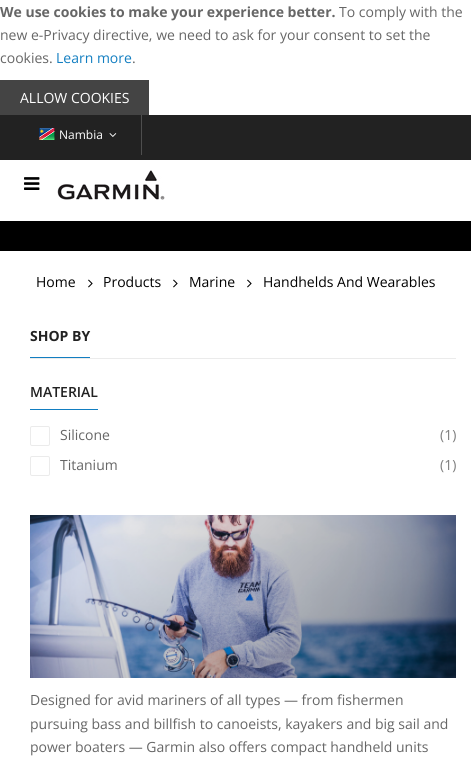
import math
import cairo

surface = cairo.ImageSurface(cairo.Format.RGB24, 471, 759)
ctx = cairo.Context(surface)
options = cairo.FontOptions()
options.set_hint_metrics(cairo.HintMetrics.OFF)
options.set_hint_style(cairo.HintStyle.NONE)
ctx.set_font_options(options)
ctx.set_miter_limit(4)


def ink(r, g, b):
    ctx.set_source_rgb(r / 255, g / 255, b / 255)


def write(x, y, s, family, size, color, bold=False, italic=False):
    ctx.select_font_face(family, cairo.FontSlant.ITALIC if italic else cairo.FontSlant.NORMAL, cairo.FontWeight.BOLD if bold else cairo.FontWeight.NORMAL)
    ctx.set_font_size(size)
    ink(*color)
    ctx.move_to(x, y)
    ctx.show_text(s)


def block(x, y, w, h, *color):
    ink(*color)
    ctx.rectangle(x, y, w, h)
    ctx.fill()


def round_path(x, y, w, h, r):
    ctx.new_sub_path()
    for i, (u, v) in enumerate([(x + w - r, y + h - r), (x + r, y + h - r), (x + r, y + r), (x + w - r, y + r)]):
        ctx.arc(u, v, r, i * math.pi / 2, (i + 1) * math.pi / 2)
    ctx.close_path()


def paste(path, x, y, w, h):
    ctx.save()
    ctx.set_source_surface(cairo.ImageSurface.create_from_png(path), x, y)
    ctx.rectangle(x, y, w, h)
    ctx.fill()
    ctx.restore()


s1 = dict(family="Open Sans", size=14, color=(102, 102, 102), bold=True)
s2 = dict(family="Open Sans", size=14, color=(102, 102, 102))
s3 = dict(family="Open Sans", size=14, color=(18, 126, 193))
s4 = dict(family="Open Sans", size=14, color=(255, 255, 255))
s5 = dict(family="Open Sans", size=12, color=(255, 255, 255))
s6 = dict(family="Open Sans", size=14, color=(0, 0, 0))
s7 = dict(family="Open Sans", size=14, color=(34, 34, 34), bold=True)
s8 = dict(family="Open Sans SemiBold", size=14, color=(34, 34, 34))
s9 = dict(family="Open Sans", size=14, color=(125, 125, 125))

ink(255, 255, 255)
ctx.paint()
write(0, 17, "We use cookies to make your experience better.", **s1)
write(339, 17, "To comply with the", **s2)
write(0, 40, "new e-Privacy directive, we need to ask for your consent to set the", **s2)
write(0, 63, "cookies.", **s2)
write(56, 63, "Learn more", **s3)
write(132, 63, ".", **s2)
block(0, 80, 149, 35, 68, 68, 68)
write(20, 103, "ALLOW COOKIES", **s4)
block(0, 115, 471, 45, 34, 34, 34)
block(141, 115, 1, 40, 78, 78, 78)
paste("pic1.png", 39, 128, 16, 12)
write(59, 139, "Nambia", **s5)
paste("pic2.png", 109, 133, 8, 4)
paste("pic3.png", 24, 177, 16, 13)
paste("pic4.png", 57, 170, 108, 30)
block(0, 221, 471, 30, 0, 0, 0)
write(36, 287, "Home", **s6)
paste("pic5.png", 88, 279, 5, 9)
write(103, 287, "Products", **s6)
paste("pic5.png", 173, 279, 5, 9)
write(189, 287, "Marine", **s6)
paste("pic5.png", 247, 279, 5, 9)
write(263, 287, "Handhelds And Wearables", **s6)
block(30, 358, 426, 1, 235, 235, 235)
block(30, 357, 60, 1, 18, 126, 193)
write(30, 341, "SHOP BY", **s7)
block(30, 409, 68, 1, 18, 126, 193)
write(30, 397, "MATERIAL", **s8)
round_path(30.5, 426.5, 19, 19, 1.5)
ink(235, 235, 235)
ctx.set_line_width(1)
ctx.stroke()
write(60, 440, "Silicone", **s2)
write(440, 440, "(1)", **s9)
round_path(30.5, 456.5, 19, 19, 1.5)
ink(235, 235, 235)
ctx.stroke()
write(60, 470, "Titanium", **s2)
write(440, 470, "(1)", **s9)
paste("pic6.png", 30, 515, 426, 163)
write(30, 705, "Designed for avid mariners of all types — from fishermen", **s2)
write(30, 729, "pursuing bass and billfish to canoeists, kayakers and big sail and", **s2)
write(30, 752, "power boaters — Garmin also offers compact handheld units", **s2)
surface.write_to_png("screenshot.png")
